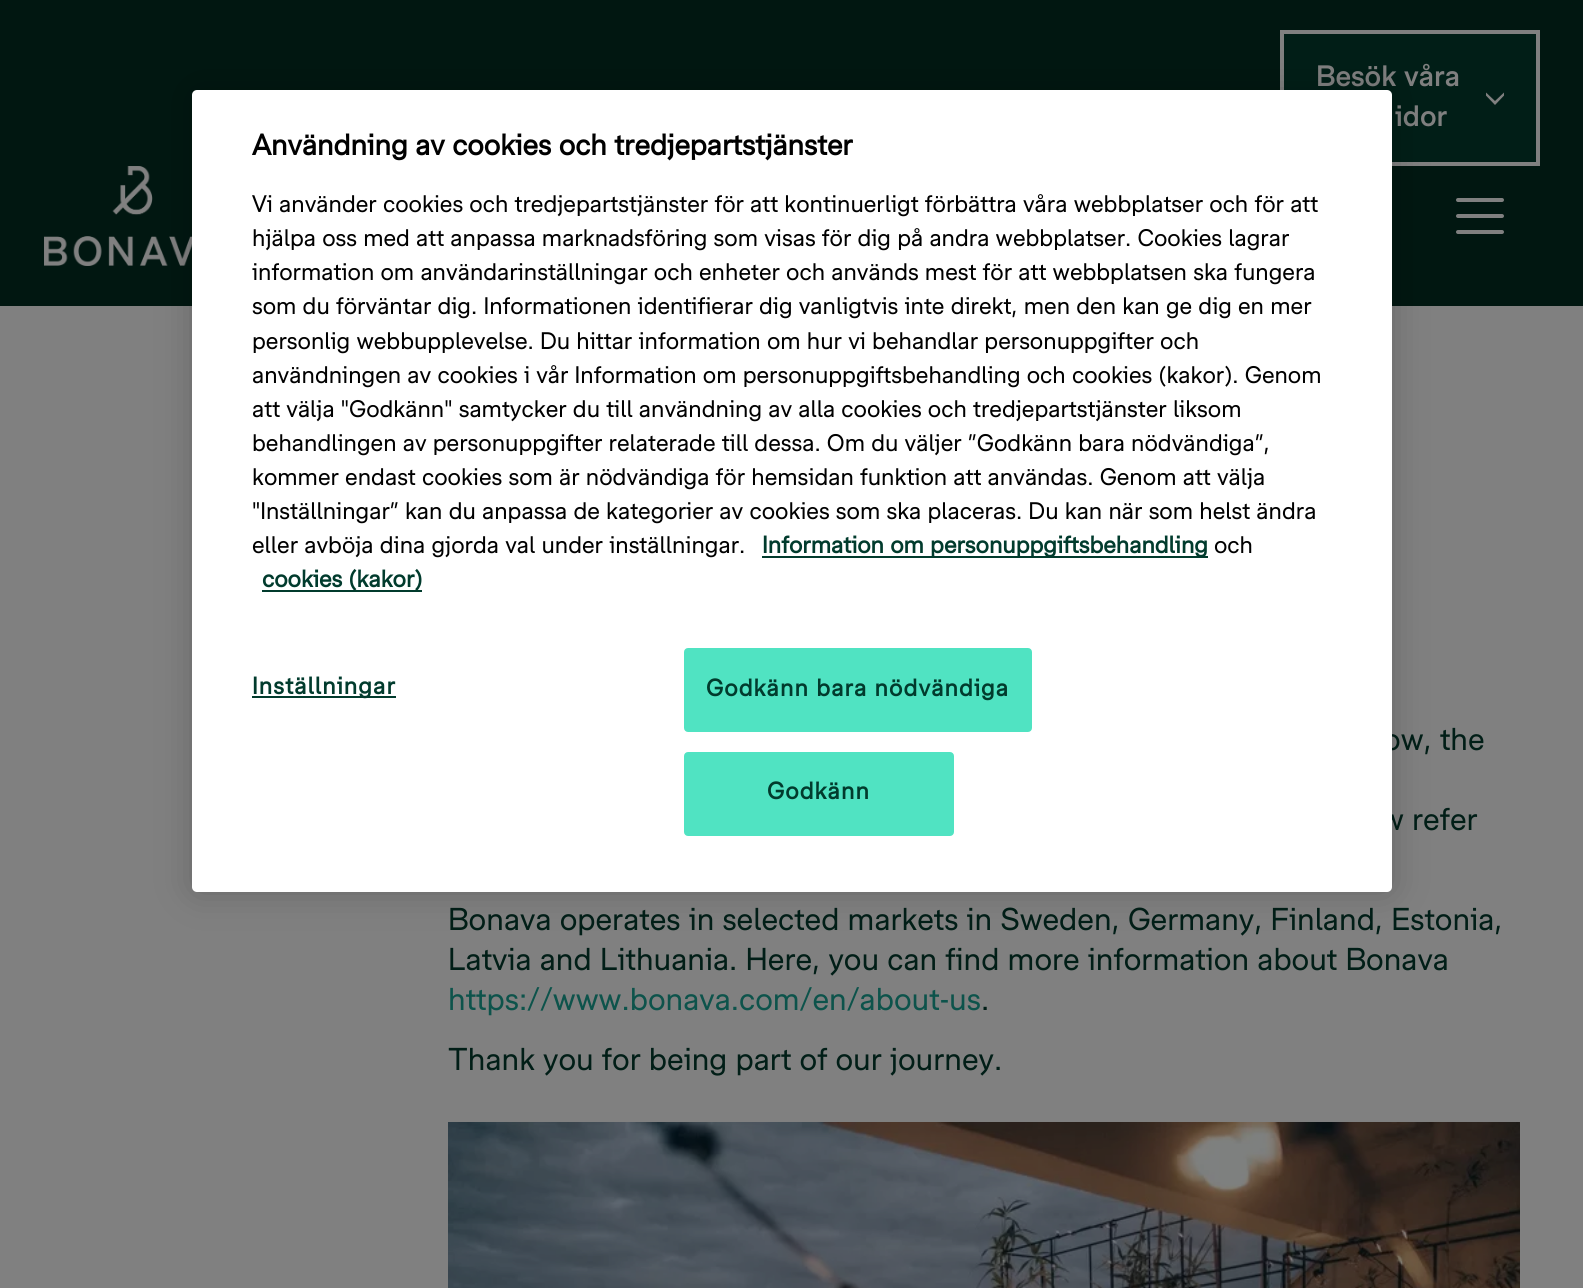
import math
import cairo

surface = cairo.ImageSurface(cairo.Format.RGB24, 1583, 1288)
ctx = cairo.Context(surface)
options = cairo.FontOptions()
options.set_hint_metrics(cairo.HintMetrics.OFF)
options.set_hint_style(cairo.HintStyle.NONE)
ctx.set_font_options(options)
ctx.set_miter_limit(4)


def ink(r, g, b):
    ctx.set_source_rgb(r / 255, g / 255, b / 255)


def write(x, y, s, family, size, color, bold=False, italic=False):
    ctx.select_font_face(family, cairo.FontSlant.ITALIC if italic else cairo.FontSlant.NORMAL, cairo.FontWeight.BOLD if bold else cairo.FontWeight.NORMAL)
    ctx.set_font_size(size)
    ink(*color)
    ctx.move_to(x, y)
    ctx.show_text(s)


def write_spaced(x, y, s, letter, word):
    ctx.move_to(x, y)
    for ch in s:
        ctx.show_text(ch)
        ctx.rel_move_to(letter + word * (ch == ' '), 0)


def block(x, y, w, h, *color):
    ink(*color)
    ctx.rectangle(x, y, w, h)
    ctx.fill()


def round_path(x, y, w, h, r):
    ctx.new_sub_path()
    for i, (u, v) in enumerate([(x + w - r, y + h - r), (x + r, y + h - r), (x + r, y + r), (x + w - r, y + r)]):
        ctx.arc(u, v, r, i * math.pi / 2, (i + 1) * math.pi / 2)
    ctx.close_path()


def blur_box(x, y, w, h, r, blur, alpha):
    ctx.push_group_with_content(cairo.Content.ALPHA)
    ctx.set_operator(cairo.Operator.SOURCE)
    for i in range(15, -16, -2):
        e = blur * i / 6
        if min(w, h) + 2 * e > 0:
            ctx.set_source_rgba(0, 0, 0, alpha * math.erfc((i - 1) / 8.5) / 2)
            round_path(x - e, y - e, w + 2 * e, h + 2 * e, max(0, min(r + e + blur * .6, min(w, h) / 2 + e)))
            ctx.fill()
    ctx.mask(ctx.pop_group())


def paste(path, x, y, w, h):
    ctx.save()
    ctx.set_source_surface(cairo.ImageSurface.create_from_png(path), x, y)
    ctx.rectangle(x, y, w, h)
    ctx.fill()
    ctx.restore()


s1 = dict(family="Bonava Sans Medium", size=28, color=(128, 128, 128))
s2 = dict(family="Bonava Sans", size=30, color=(1, 30, 23))
s3 = dict(family="Bonava Sans", size=30, color=(13, 83, 75))
s4 = dict(family="Bonava Sans", size=28, color=(0, 0, 0), bold=True)
s5 = dict(family="Bonava Sans", size=22.75, color=(0, 0, 0))
s6 = dict(family="Bonava Sans", size=22.75, color=(1, 59, 45), bold=True)

ink(128, 128, 128)
ctx.paint()
block(0, 0, 1583, 306, 1, 23, 17)
ink(1, 30, 23)
ctx.rectangle(1282, 32, 256, 132)
ctx.fill_preserve()
ink(128, 128, 128)
ctx.set_line_width(4)
ctx.stroke()
write(1316, 86, "Besök våra", **s1)
ctx.save()
ctx.rectangle(1486, 78, 18, 40)
ctx.clip()
ctx.new_path()
ctx.move_to(1504, 92.5)
ctx.line_to(1505.5, 94)
ctx.line_to(1495, 105)
ctx.line_to(1484.5, 94)
ctx.line_to(1486, 92.5)
ctx.line_to(1495, 101)
ctx.close_path()
ctx.fill()
ctx.restore()
write(1395, 126, "idor", **s1)
paste("pic1.png", 44, 166, 148, 100)
paste("pic2.png", 1456, 198, 48, 36)
write(1383, 750, "ow, the", **s2)
write(1381, 830, "w refer", **s2)
write(448, 930, "Bonava operates in selected markets in Sweden, Germany, Finland, Estonia,", **s2)
write(448, 970, "Latvia and Lithuania. Here, you can find more information about Bonava", **s2)
write(448, 1010, "https://www.bonava.com/en/about-us", **s3)
write(981, 1010, ".", **s2)
write(448, 1070, "Thank you for being part of our journey.", **s2)
paste("pic3.png", 448, 1122, 1072, 166)
ink(0, 0, 0)
blur_box(192, 90, 1200, 802, 5, 18, 0.2)
ink(255, 255, 255)
round_path(192, 90, 1200, 802, 5)
ctx.fill()
write(252, 155, "Användning av cookies och tredjepartstjänster", **s4)
write(252, 212, "Vi använder cookies och tredjepartstjänster för att kontinuerligt förbättra våra webbplatser och för att", **s5)
write(252, 246, "hjälpa oss med att anpassa marknadsföring som visas för dig på andra webbplatser. Cookies lagrar", **s5)
write(252, 280, "information om användarinställningar och enheter och används mest för att webbplatsen ska fungera", **s5)
write(252, 314, "som du förväntar dig. Informationen identifierar dig vanligtvis inte direkt, men den kan ge dig en mer", **s5)
write(252, 349, "personlig webbupplevelse. Du hittar information om hur vi behandlar personuppgifter och", **s5)
write(252, 383, "användningen av cookies i vår Information om personuppgiftsbehandling och cookies (kakor). Genom", **s5)
write(252, 417, "att välja \"Godkänn\" samtycker du till användning av alla cookies och tredjepartstjänster liksom", **s5)
write(252, 451, "behandlingen av personuppgifter relaterade till dessa. Om du väljer ”Godkänn bara nödvändiga”,", **s5)
write(252, 485, "kommer endast cookies som är nödvändiga för hemsidan funktion att användas. Genom att välja", **s5)
write(252, 519, "\"Inställningar” kan du anpassa de kategorier av cookies som ska placeras. Du kan när som helst ändra", **s5)
write(252, 553, "eller avböja dina gjorda val under inställningar.", **s5)
block(762, 556, 446, 2, 1, 59, 45)
write(762, 553, "Information om personuppgiftsbehandling", **s6)
write(1214, 553, "och", **s5)
block(262, 590, 160, 2, 1, 59, 45)
write(262, 587, "cookies (kakor)", **s6)
block(252, 696, 144, 2, 1, 59, 45)
write_spaced(252, 694, "Inställningar", 1.1, 0)
ink(80, 227, 194)
round_path(685, 649, 346, 82, 3)
ctx.fill_preserve()
ctx.set_line_width(2)
ctx.stroke()
ink(1, 59, 45)
write_spaced(706, 696, "Godkänn bara nödvändiga", 1.1, 0)
ink(80, 227, 194)
round_path(685, 753, 268, 82, 3)
ctx.fill_preserve()
ctx.stroke()
ink(1, 59, 45)
write_spaced(767, 799, "Godkänn", 1.1, 0)
surface.write_to_png("screenshot.png")
